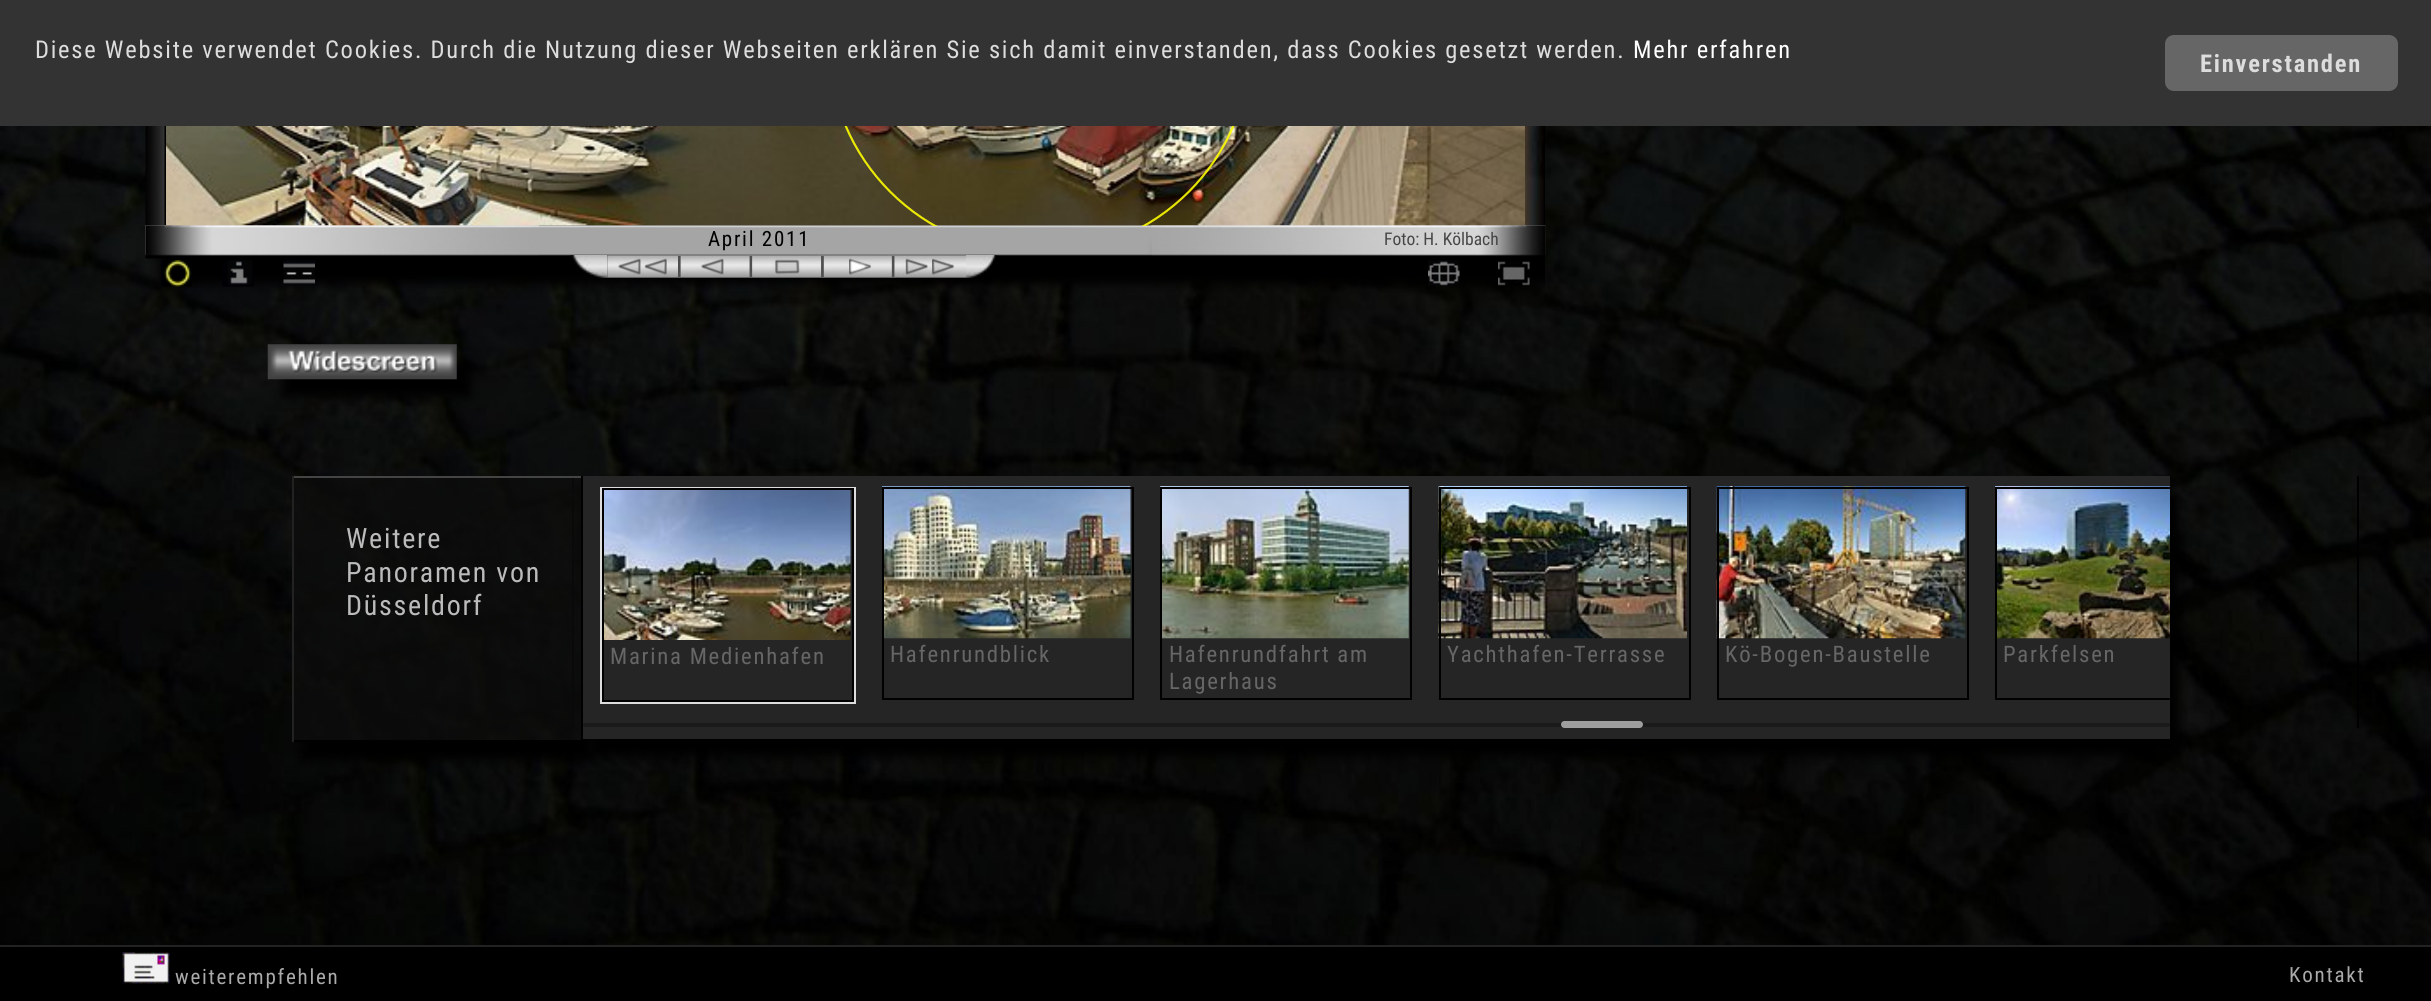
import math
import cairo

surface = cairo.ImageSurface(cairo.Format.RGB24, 2431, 1001)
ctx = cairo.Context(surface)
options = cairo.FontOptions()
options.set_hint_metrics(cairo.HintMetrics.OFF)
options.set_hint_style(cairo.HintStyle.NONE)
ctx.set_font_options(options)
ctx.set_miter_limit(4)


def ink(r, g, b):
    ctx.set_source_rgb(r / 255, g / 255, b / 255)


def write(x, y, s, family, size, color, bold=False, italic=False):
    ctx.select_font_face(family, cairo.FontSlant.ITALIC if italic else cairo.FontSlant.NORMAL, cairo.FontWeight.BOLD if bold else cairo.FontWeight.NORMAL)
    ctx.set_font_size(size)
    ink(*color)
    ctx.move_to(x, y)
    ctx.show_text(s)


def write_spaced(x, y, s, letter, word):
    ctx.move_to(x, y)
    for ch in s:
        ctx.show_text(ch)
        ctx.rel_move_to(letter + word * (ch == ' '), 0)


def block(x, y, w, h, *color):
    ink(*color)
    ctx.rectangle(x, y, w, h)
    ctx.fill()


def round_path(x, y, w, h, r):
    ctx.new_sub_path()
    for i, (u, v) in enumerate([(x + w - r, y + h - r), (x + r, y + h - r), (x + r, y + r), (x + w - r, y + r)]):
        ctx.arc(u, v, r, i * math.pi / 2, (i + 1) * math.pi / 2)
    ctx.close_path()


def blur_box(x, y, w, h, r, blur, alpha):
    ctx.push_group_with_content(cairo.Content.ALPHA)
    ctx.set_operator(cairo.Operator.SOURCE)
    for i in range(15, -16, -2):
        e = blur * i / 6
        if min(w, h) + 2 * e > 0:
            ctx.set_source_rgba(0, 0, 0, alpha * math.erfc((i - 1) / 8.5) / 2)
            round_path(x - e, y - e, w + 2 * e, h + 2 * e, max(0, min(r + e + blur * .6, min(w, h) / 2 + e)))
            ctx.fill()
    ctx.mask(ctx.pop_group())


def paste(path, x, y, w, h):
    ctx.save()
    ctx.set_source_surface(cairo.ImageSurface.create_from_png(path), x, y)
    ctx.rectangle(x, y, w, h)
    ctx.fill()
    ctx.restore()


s1 = dict(family="Roboto Condensed", size=17.5, color=(70, 70, 70))

ink(255, 255, 255)
ctx.paint()
paste("pic1.png", 0, 126, 2431, 819)
ctx.save()
ctx.rectangle(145, 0, 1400, 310)
ctx.clip()
ink(0, 0, 0)
blur_box(159, -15, 1400, 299, 0, 5, 1)
blur_box(163, -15, 1393, 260, 0, 5, 1)
ctx.restore()
paste("pic4.png", 1524, 126, 20, 100)
paste("pic2.png", 145, 126, 20, 101)
paste("pic6.png", 145, 225, 1401, 34)
paste("pic5.png", 145, 225, 394, 31)
ctx.save()
ctx.rectangle(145, 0, 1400, 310)
ctx.clip()
ink(0, 0, 0)
blur_box(1160, 243, 394, 32, 0, 5, 1)
ctx.restore()
paste("pic7.png", 1151, 225, 394, 31)
paste("pic3.png", 166, 126, 1359, 100)
ctx.save()
ctx.rectangle(166, 0, 1358, 226)
ctx.clip()
round_path(829, -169, 421, 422, 209)
ctx.set_source_rgba(1, 1, 0, 0.66)
ctx.stroke()
round_path(829, -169, 421, 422, 209)
ctx.stroke()
ctx.restore()
block(0, 0, 2431, 126, 51, 51, 51)
ctx.select_font_face("Roboto Condensed")
ctx.set_font_size(24.5)
ink(221, 221, 221)
write_spaced(35, 58, "Diese Website verwendet Cookies. Durch die Nutzung dieser Webseiten erklären Sie sich damit einverstanden, dass Cookies gesetzt werden.", 1.75, 0)
ink(255, 255, 255)
write_spaced(1633, 58, "Mehr erfahren", 1.75, 0)
ink(102, 102, 102)
round_path(2165, 35, 233, 56, 9)
ctx.fill()
ctx.select_font_face("Roboto Condensed", cairo.FontSlant.NORMAL, cairo.FontWeight.BOLD)
ink(221, 221, 221)
write_spaced(2200, 72, "Einverstanden", 1.75, 0)
ctx.select_font_face("Roboto Condensed")
ctx.set_font_size(21)
ink(0, 0, 0)
write_spaced(708, 246, "April 2011", 1.75, 0)
write(1384, 245, "Foto: H. Kölbach", **s1)
paste("pic8.png", 161, 260, 31, 27)
paste("pic9.png", 222, 260, 32, 27)
paste("pic10.png", 283, 260, 32, 26)
paste("pic11.png", 569, 255, 39, 23)
paste("pic12.png", 607, 255, 359, 23)
paste("pic13.png", 966, 255, 33, 23)
paste("pic14.png", 1428, 260, 32, 26)
paste("pic15.png", 1498, 261, 32, 25)
ink(0, 0, 0)
blur_box(282, 362, 189, 35, 0, 5, 1)
paste("pic16.png", 267, 344, 190, 36)
block(572, 476, 2, 252, 0, 0, 0)
ctx.save()
ctx.set_fill_rule(cairo.FillRule.EVEN_ODD)
ctx.new_path()
ctx.move_to(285, 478)
ctx.line_to(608, 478)
ctx.line_to(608, 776)
ctx.line_to(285, 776)
ctx.close_path()
ctx.move_to(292, 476)
ctx.line_to(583, 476)
ctx.line_to(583, 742)
ctx.line_to(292, 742)
ctx.close_path()
ctx.clip()
ink(0, 0, 0)
blur_box(301, 494, 291, 266, 0, 5, 1)
ctx.restore()
ctx.set_source_rgba(0.051, 0.051, 0.051, 0.7)
ctx.rectangle(294, 478, 287, 262)
ctx.fill()
block(292, 476, 291, 2, 68, 68, 68)
block(581, 476, 2, 266, 0, 0, 0)
block(292, 740, 291, 2, 0, 0, 0)
block(292, 476, 2, 266, 34, 34, 34)
ctx.set_font_size(28)
ink(187, 187, 187)
write_spaced(346, 548, "Weitere", 1.75, 0)
write_spaced(346, 582, "Panoramen von", 1.75, 0)
write_spaced(346, 615, "Düsseldorf", 1.75, 0)
block(2357, 476, 2, 252, 0, 0, 0)
ink(0, 0, 0)
blur_box(592, 494, 1587, 262, 0, 5, 1)
block(583, 476, 1587, 263, 37, 37, 37)
paste("pic17.png", 604, 490, 247, 150)
ctx.rectangle(601, 488, 254, 215)
ink(221, 221, 221)
ctx.stroke()
ctx.rectangle(603, 489, 250, 212)
ink(0, 0, 0)
ctx.stroke()
ctx.set_font_size(22.75)
ink(102, 102, 102)
write_spaced(610, 664, "Marina Medienhafen", 1.75, 0)
paste("pic18.png", 882, 486, 249, 153)
ctx.rectangle(883, 488, 250, 211)
ink(0, 0, 0)
ctx.stroke()
ink(102, 102, 102)
write_spaced(890, 662, "Hafenrundblick", 1.75, 0)
paste("pic19.png", 1160, 486, 249, 153)
ctx.rectangle(1161, 488, 250, 211)
ink(0, 0, 0)
ctx.stroke()
ink(102, 102, 102)
write_spaced(1169, 662, "Hafenrundfahrt am", 1.75, 0)
write_spaced(1169, 689, "Lagerhaus", 1.75, 0)
paste("pic20.png", 1438, 486, 249, 153)
ctx.rectangle(1440, 488, 250, 211)
ink(0, 0, 0)
ctx.stroke()
ink(102, 102, 102)
write_spaced(1447, 662, "Yachthafen-Terrasse", 1.75, 0)
paste("pic21.png", 1716, 486, 250, 153)
ctx.rectangle(1718, 488, 250, 211)
ink(0, 0, 0)
ctx.stroke()
ink(102, 102, 102)
write_spaced(1725, 662, "Kö-Bogen-Baustelle", 1.75, 0)
paste("pic22.png", 1995, 486, 175, 153)
ctx.save()
ctx.rectangle(1995, 487, 175, 213)
ctx.clip()
ctx.rectangle(1996, 488, 250, 211)
ink(0, 0, 0)
ctx.stroke()
ctx.restore()
write_spaced(2003, 662, "Parkfelsen", 1.75, 0)
ink(26, 26, 26)
round_path(583, 723, 1587, 4, 2)
ctx.fill()
ctx.set_source_rgba(0.788, 0.788, 0.788, 0.75)
round_path(1561, 721, 82, 7, 3.5)
ctx.fill()
block(0, 947, 2431, 54, 0, 0, 0)
block(0, 945, 2431, 2, 34, 34, 34)
paste("pic23.png", 122, 952, 48, 32)
ctx.set_font_size(21)
ink(170, 170, 170)
write_spaced(175, 984, "weiterempfehlen", 1.75, 0)
write_spaced(2289, 982, "Kontakt", 1.75, 0)
surface.write_to_png("screenshot.png")
